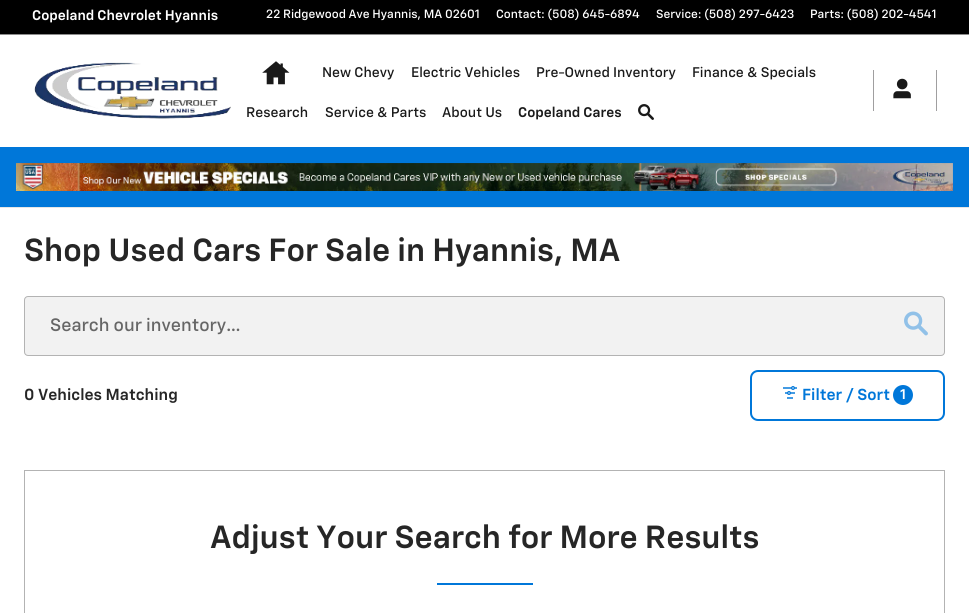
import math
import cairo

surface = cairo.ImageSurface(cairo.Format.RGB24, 969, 613)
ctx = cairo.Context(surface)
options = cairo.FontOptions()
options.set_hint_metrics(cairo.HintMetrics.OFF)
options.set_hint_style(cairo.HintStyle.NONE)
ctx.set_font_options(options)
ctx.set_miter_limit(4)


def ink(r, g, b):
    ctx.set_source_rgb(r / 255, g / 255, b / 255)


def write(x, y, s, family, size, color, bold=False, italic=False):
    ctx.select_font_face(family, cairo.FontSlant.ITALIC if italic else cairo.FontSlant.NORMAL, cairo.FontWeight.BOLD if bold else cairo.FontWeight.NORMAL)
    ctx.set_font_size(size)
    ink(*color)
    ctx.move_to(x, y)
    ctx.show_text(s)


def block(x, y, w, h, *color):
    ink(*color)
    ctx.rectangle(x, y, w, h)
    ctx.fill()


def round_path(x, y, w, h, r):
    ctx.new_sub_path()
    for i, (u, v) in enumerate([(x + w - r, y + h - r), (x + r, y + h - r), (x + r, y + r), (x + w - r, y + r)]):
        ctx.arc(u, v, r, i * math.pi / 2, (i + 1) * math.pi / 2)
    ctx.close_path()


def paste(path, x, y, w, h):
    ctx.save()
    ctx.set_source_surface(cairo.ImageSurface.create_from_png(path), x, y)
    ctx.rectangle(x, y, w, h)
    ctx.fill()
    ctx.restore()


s1 = dict(family="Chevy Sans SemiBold", size=14, color=(255, 255, 255))
s2 = dict(family="Chevy Sans Medium", size=12, color=(255, 255, 255))
s3 = dict(family="Chevy Sans Medium", size=14, color=(26, 26, 26))
s4 = dict(family="Chevy Sans SemiBold", size=14, color=(26, 26, 26))
s5 = dict(family="Chevy Sans SemiBold", size=32, color=(38, 38, 38))
s6 = dict(family="Chevy Sans Medium", size=18, color=(102, 102, 102))
s7 = dict(family="Chevy Sans SemiBold", size=16, color=(38, 38, 38))
s8 = dict(family="Chevy Sans SemiBold", size=16, color=(0, 119, 217))

ink(255, 255, 255)
ctx.paint()
block(0, 207, 969, 1, 230, 230, 230)
block(0, 0, 969, 34, 0, 0, 0)
block(0, 34, 969, 1, 140, 140, 140)
write(32, 20, "Copeland Chevrolet Hyannis", **s1)
write(266, 18, "22 Ridgewood Ave Hyannis, MA 02601", **s2)
write(496, 18, "Contact: (508) 645-6894", **s2)
write(656, 18, "Service: (508) 297-6423", **s2)
write(810, 18, "Parts: (508) 202-4541", **s2)
paste("pic1.png", 34, 62, 197, 57)
paste("pic2.png", 262, 61, 28, 24)
write(322, 77, "New Chevy", **s3)
write(411, 77, "Electric Vehicles", **s3)
write(536, 77, "Pre-Owned Inventory", **s3)
write(692, 77, "Finance & Specials", **s3)
write(246, 117, "Research", **s3)
write(325, 117, "Service & Parts", **s3)
write(442, 117, "About Us", **s3)
write(518, 117, "Copeland Cares", **s4)
paste("pic3.png", 638, 104, 16, 16)
block(873, 70, 1, 41, 160, 159, 160)
paste("pic4.png", 893, 78, 18, 21)
block(936, 70, 1, 41, 160, 159, 160)
block(0, 147, 969, 60, 0, 119, 217)
paste("pic5.png", 16, 163, 937, 28)
write(24, 261, "Shop Used Cars For Sale in Hyannis, MA", **s5)
ink(242, 242, 242)
round_path(24.5, 296.5, 920, 59, 3.5)
ctx.fill_preserve()
ink(179, 179, 179)
ctx.set_line_width(1)
ctx.stroke()
write(50, 331, "Search our inventory…", **s6)
paste("pic6.png", 904, 311, 24, 25)
write(24, 400, "0 Vehicles Matching", **s7)
round_path(751, 371, 193, 49, 7)
ink(0, 119, 217)
ctx.set_line_width(2)
ctx.stroke()
paste("pic7.png", 783, 386, 14, 13)
write(802, 400, "Filter / Sort", **s8)
ctx.new_path()
ctx.arc(903, 395, 10, 0, 2 * math.pi)
ctx.fill()
write(900, 399, "1", **s1)
ctx.rectangle(24.5, 470.5, 920, 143)
ink(179, 179, 179)
ctx.set_line_width(1)
ctx.stroke()
write(210, 548, "Adjust Your Search for More Results", **s5)
block(437, 583, 96, 2, 0, 119, 217)
surface.write_to_png("screenshot.png")
